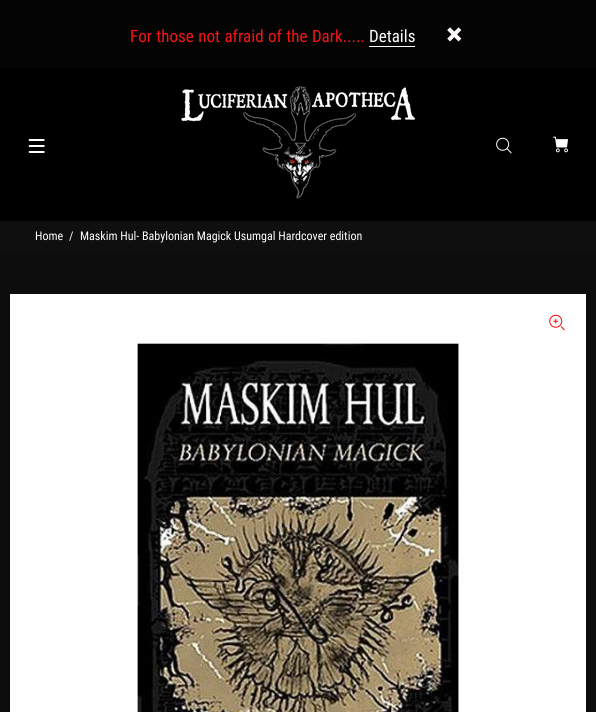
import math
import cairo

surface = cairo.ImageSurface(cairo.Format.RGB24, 596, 712)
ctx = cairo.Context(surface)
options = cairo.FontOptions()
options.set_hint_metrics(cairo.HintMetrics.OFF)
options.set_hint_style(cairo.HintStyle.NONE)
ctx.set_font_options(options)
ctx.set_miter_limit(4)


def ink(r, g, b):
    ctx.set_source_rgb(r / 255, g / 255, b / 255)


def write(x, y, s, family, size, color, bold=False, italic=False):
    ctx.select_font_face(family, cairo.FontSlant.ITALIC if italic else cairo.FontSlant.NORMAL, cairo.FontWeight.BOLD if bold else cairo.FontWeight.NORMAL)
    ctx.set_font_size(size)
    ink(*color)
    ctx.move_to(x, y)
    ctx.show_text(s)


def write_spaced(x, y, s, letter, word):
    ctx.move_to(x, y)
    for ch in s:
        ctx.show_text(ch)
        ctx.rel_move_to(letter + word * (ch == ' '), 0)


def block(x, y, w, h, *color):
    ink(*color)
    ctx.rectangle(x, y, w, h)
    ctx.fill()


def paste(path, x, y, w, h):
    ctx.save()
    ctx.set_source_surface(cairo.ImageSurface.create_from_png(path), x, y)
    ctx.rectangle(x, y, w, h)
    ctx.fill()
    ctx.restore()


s1 = dict(family="Roboto Condensed", size=17, color=(255, 255, 255))
s2 = dict(family="Roboto Condensed", size=12, color=(255, 255, 255))

ink(12, 12, 12)
ctx.paint()
block(0, 68, 596, 153, 0, 0, 0)
block(0, 0, 596, 68, 4, 4, 4)
ctx.select_font_face("Roboto Condensed")
ctx.set_font_size(17)
ink(246, 21, 21)
write_spaced(130, 42, "For those not afraid of the Dark.....", 0, 0.5)
write(369, 42, "Details", **s1)
block(369, 46, 46, 1, 255, 255, 255)
paste("pic1.png", 447, 27, 15, 15)
paste("pic2.png", 28, 139, 17, 14)
paste("pic3.png", 181, 86, 234, 115)
paste("pic4.png", 496, 137, 16, 17)
paste("pic5.png", 553, 136, 15, 17)
block(0, 221, 596, 30, 15, 15, 16)
write(35, 240, "Home", **s2)
write(69, 240, "/", **s2)
write(80, 240, "Maskim Hul- Babylonian Magick Usumgal Hardcover edition", **s2)
paste("pic6.png", 10, 294, 576, 418)
paste("pic7.png", 549, 314, 16, 17)
surface.write_to_png("screenshot.png")
